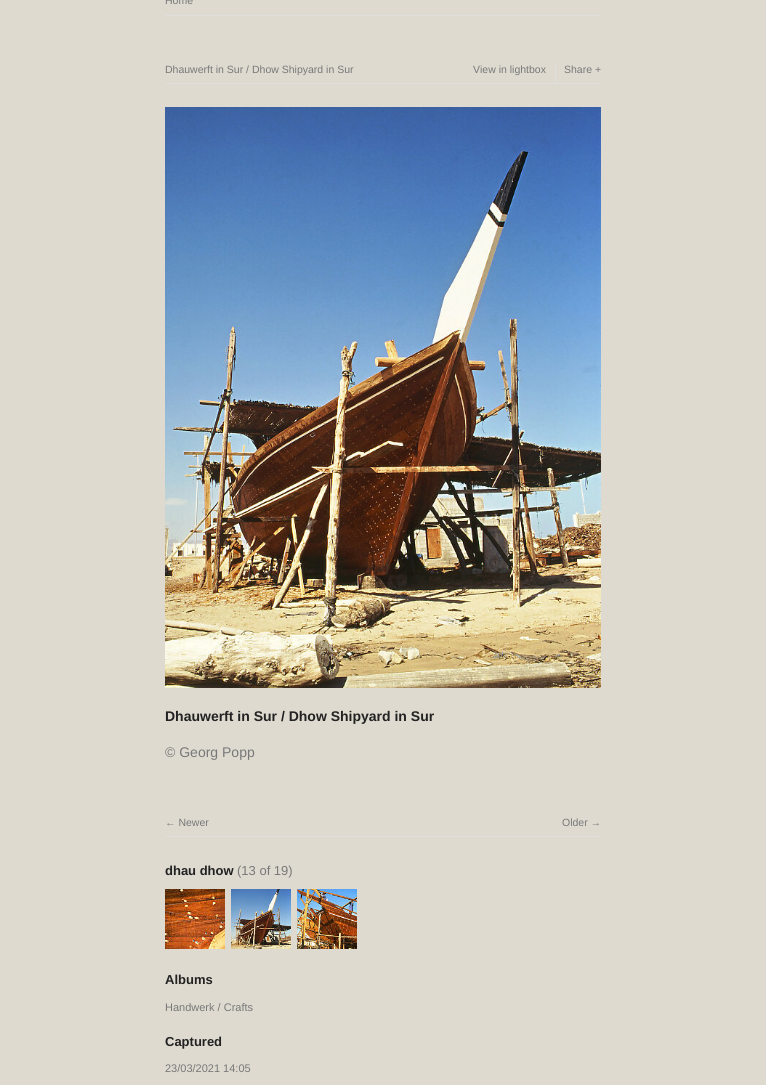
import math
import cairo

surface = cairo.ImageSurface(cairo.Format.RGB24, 766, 1085)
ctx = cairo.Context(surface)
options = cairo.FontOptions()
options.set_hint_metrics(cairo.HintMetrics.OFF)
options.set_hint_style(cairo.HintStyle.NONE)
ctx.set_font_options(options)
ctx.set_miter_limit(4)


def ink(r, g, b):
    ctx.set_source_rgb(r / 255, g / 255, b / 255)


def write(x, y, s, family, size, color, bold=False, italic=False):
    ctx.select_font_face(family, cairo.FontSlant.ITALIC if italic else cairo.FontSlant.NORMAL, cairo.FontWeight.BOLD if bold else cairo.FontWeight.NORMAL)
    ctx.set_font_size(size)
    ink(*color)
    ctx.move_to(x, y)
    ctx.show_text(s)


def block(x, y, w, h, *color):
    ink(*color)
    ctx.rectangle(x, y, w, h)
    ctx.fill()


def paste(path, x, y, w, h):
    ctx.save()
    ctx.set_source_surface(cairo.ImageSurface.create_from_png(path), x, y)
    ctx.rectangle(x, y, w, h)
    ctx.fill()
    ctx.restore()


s1 = dict(family="Liberation Sans", size=10.5, color=(120, 120, 120))
s2 = dict(family="Liberation Sans", size=14, color=(34, 34, 34), bold=True)
s3 = dict(family="Liberation Sans", size=14, color=(120, 120, 120))
s4 = dict(family="Liberation Sans", size=13, color=(34, 34, 34), bold=True)
s5 = dict(family="Liberation Sans", size=13, color=(120, 120, 120))
s6 = dict(family="Liberation Sans", size=11, color=(120, 120, 120))

ink(222, 218, 208)
ctx.paint()
block(165, 15, 436, 1, 222, 222, 222)
write(165, 4, "Home", **s1)
block(165, 83, 436, 1, 222, 222, 222)
write(165, 73, "Dhauwerft in Sur / Dhow Shipyard in Sur", **s1)
write(473, 73, "View in lightbox", **s1)
block(555, 61, 1, 22, 222, 222, 222)
write(564, 73, "Share +", **s1)
paste("pic1.png", 165, 107, 436, 581)
write(165, 721, "Dhauwerft in Sur / Dhow Shipyard in Sur", **s2)
write(165, 757, "© Georg Popp", **s3)
block(165, 836, 436, 1, 222, 222, 222)
write(165, 826, "← Newer", **s1)
write(562, 826, "Older →", **s1)
write(165, 875, "dhau dhow", **s4)
write(237, 875, "(13 of 19)", **s5)
paste("pic2.png", 165, 889, 60, 60)
paste("pic3.png", 231, 889, 60, 60)
paste("pic4.png", 297, 889, 60, 60)
write(165, 984, "Albums", **s4)
write(165, 1011, "Handwerk / Crafts", **s6)
write(165, 1046, "Captured", **s4)
write(165, 1072, "23/03/2021 14:05", **s6)
surface.write_to_png("screenshot.png")
